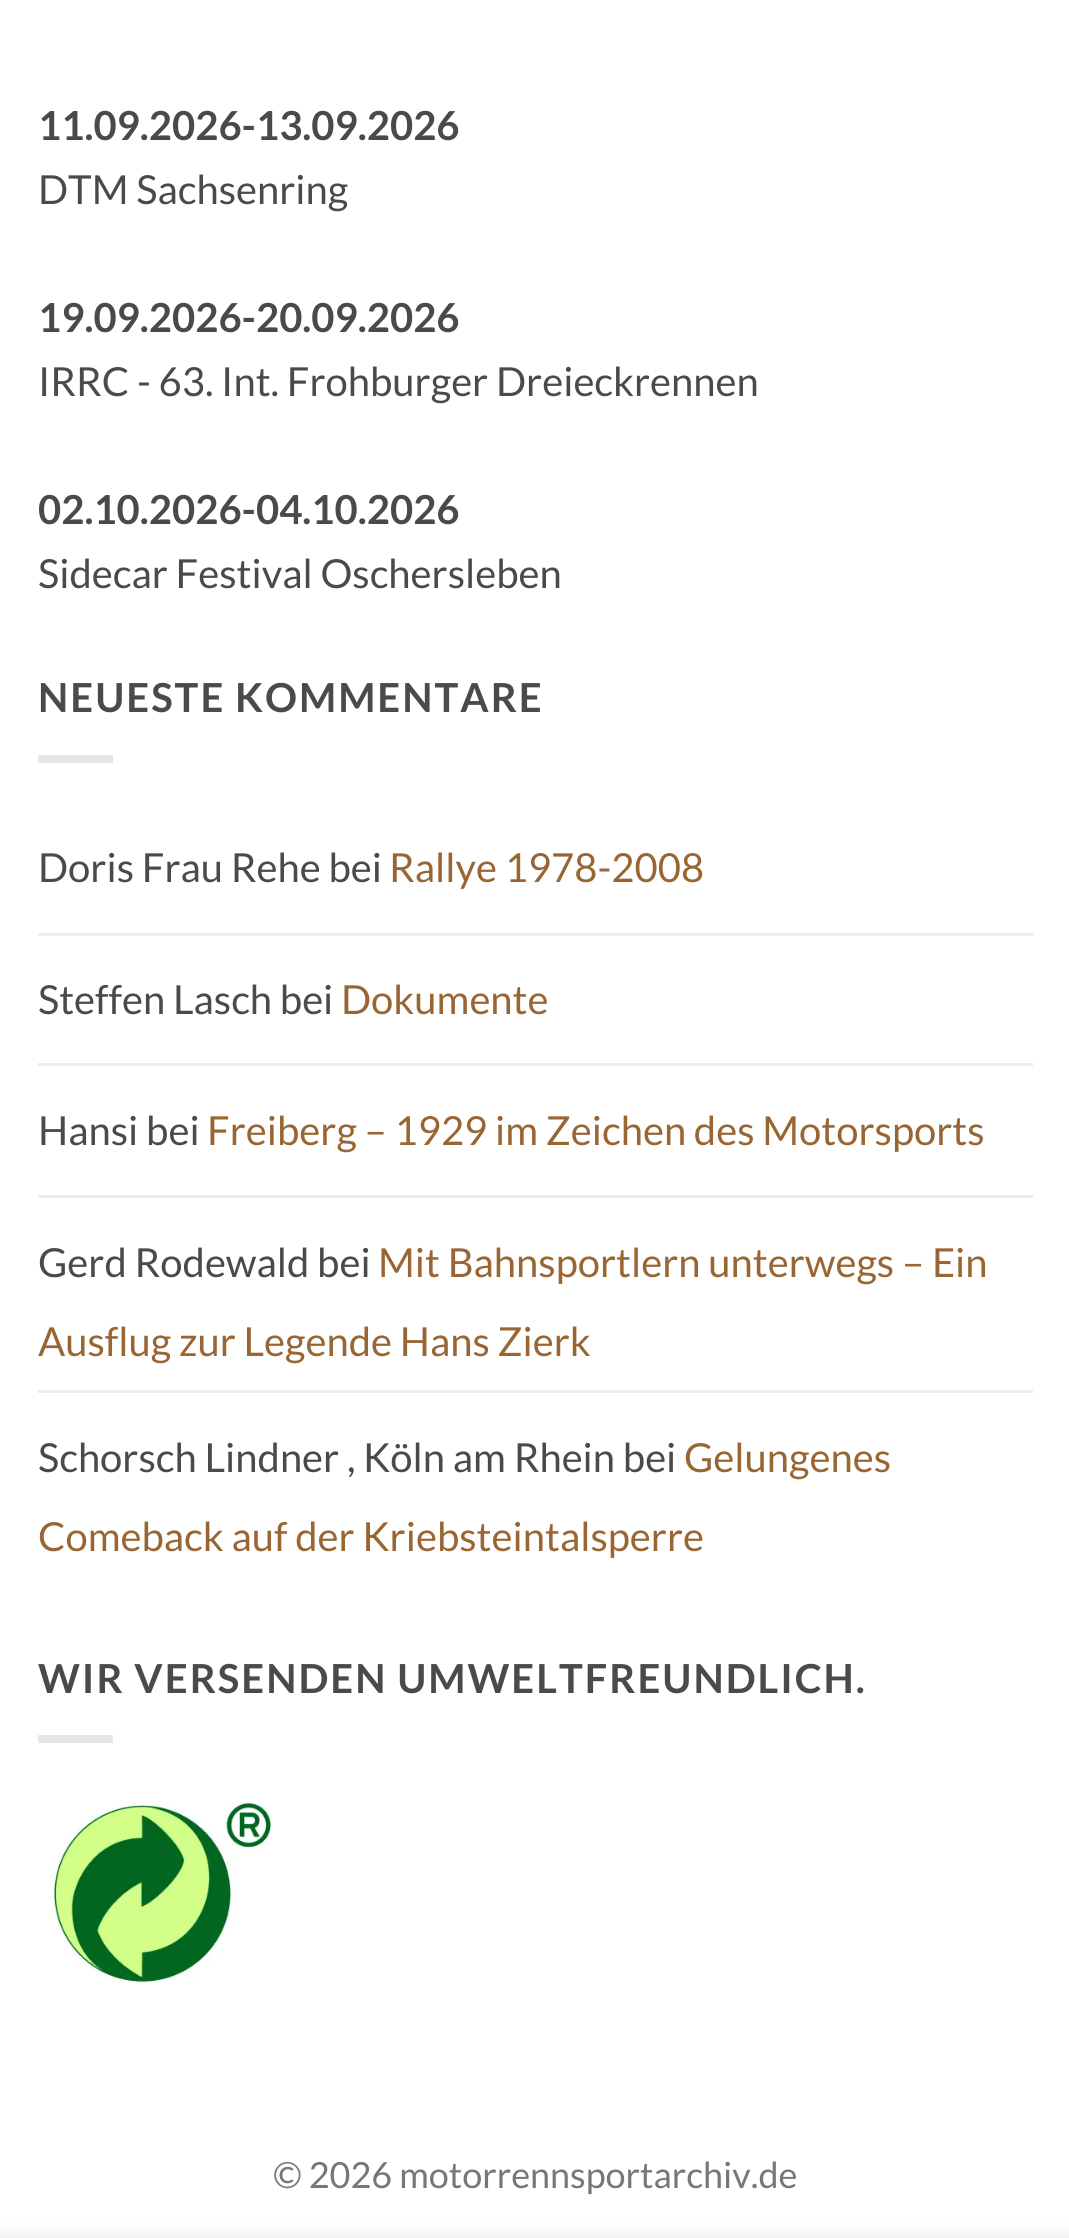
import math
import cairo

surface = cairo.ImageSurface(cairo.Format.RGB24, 1069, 2238)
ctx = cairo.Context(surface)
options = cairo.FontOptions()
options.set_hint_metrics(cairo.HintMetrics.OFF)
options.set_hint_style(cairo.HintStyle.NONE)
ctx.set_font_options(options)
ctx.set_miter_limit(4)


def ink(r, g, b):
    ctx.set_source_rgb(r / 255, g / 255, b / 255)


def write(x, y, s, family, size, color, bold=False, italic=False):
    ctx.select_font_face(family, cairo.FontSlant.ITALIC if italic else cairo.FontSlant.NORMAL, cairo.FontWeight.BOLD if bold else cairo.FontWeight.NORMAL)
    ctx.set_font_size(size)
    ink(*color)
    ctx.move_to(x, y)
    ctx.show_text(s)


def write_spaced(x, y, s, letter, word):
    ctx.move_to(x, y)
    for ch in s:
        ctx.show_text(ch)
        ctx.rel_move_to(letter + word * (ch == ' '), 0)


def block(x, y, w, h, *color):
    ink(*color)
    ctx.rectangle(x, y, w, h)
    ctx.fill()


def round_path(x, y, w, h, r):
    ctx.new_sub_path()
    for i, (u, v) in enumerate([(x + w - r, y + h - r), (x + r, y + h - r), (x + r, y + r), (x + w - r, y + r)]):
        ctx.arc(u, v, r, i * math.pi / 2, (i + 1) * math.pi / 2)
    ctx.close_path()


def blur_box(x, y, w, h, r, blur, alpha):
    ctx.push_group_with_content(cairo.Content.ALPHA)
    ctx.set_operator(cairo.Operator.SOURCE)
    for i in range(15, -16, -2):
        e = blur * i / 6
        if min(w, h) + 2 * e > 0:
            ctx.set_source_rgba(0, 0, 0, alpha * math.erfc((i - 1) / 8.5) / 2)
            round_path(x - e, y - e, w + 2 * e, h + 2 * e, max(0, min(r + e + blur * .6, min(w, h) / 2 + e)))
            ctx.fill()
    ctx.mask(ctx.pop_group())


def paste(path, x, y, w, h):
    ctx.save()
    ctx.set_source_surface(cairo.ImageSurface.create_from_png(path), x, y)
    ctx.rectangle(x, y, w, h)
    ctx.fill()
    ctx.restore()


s1 = dict(family="Lato", size=40, color=(74, 74, 74), bold=True)
s2 = dict(family="Lato", size=40, color=(74, 74, 74))
s3 = dict(family="Lato", size=40, color=(153, 102, 51))
s4 = dict(family="Lato", size=36, color=(119, 119, 119))

ink(255, 255, 255)
ctx.paint()
write(38, 140, "11.09.2026-13.09.2026", **s1)
write(38, 204, "DTM Sachsenring", **s2)
write(38, 332, "19.09.2026-20.09.2026", **s1)
write(38, 396, "IRRC - 63. Int. Frohburger Dreieckrennen", **s2)
write(38, 524, "02.10.2026-04.10.2026", **s1)
write(38, 588, "Sidecar Festival Oschersleben", **s2)
ctx.select_font_face("Lato", cairo.FontSlant.NORMAL, cairo.FontWeight.BOLD)
write_spaced(38, 712, "NEUESTE KOMMENTARE", 2, 0)
block(38, 755, 75, 8, 230, 230, 230)
write(38, 882, "Doris Frau Rehe bei", **s2)
write(389, 882, "Rallye 1978-2008", **s3)
block(38, 933, 995, 3, 236, 236, 236)
write(38, 1014, "Steffen Lasch bei", **s2)
write(341, 1014, "Dokumente", **s3)
block(38, 1063, 995, 3, 236, 236, 236)
write(38, 1145, "Hansi bei", **s2)
write(207, 1145, "Freiberg – 1929 im Zeichen des Motorsports", **s3)
block(38, 1195, 995, 3, 236, 236, 236)
write(38, 1277, "Gerd Rodewald bei", **s2)
write(378, 1277, "Mit Bahnsportlern unterwegs – Ein", **s3)
write(38, 1356, "Ausflug zur Legende Hans Zierk", **s3)
block(38, 1390, 995, 3, 236, 236, 236)
write(38, 1472, "Schorsch Lindner , Köln am Rhein bei", **s2)
write(684, 1472, "Gelungenes", **s3)
write(38, 1551, "Comeback auf der Kriebsteintalsperre", **s3)
ctx.select_font_face("Lato", cairo.FontSlant.NORMAL, cairo.FontWeight.BOLD)
ink(74, 74, 74)
write_spaced(38, 1693, "WIR VERSENDEN UMWELTFREUNDLICH.", 2, 0)
block(38, 1735, 75, 8, 230, 230, 230)
paste("pic1.png", 51, 1802, 221, 181)
write(273, 2188, "© 2026 motorrennsportarchiv.de", **s4)
ink(0, 0, 0)
blur_box(0, 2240, 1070, 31, 0, 11, 0.14)
surface.write_to_png("screenshot.png")
